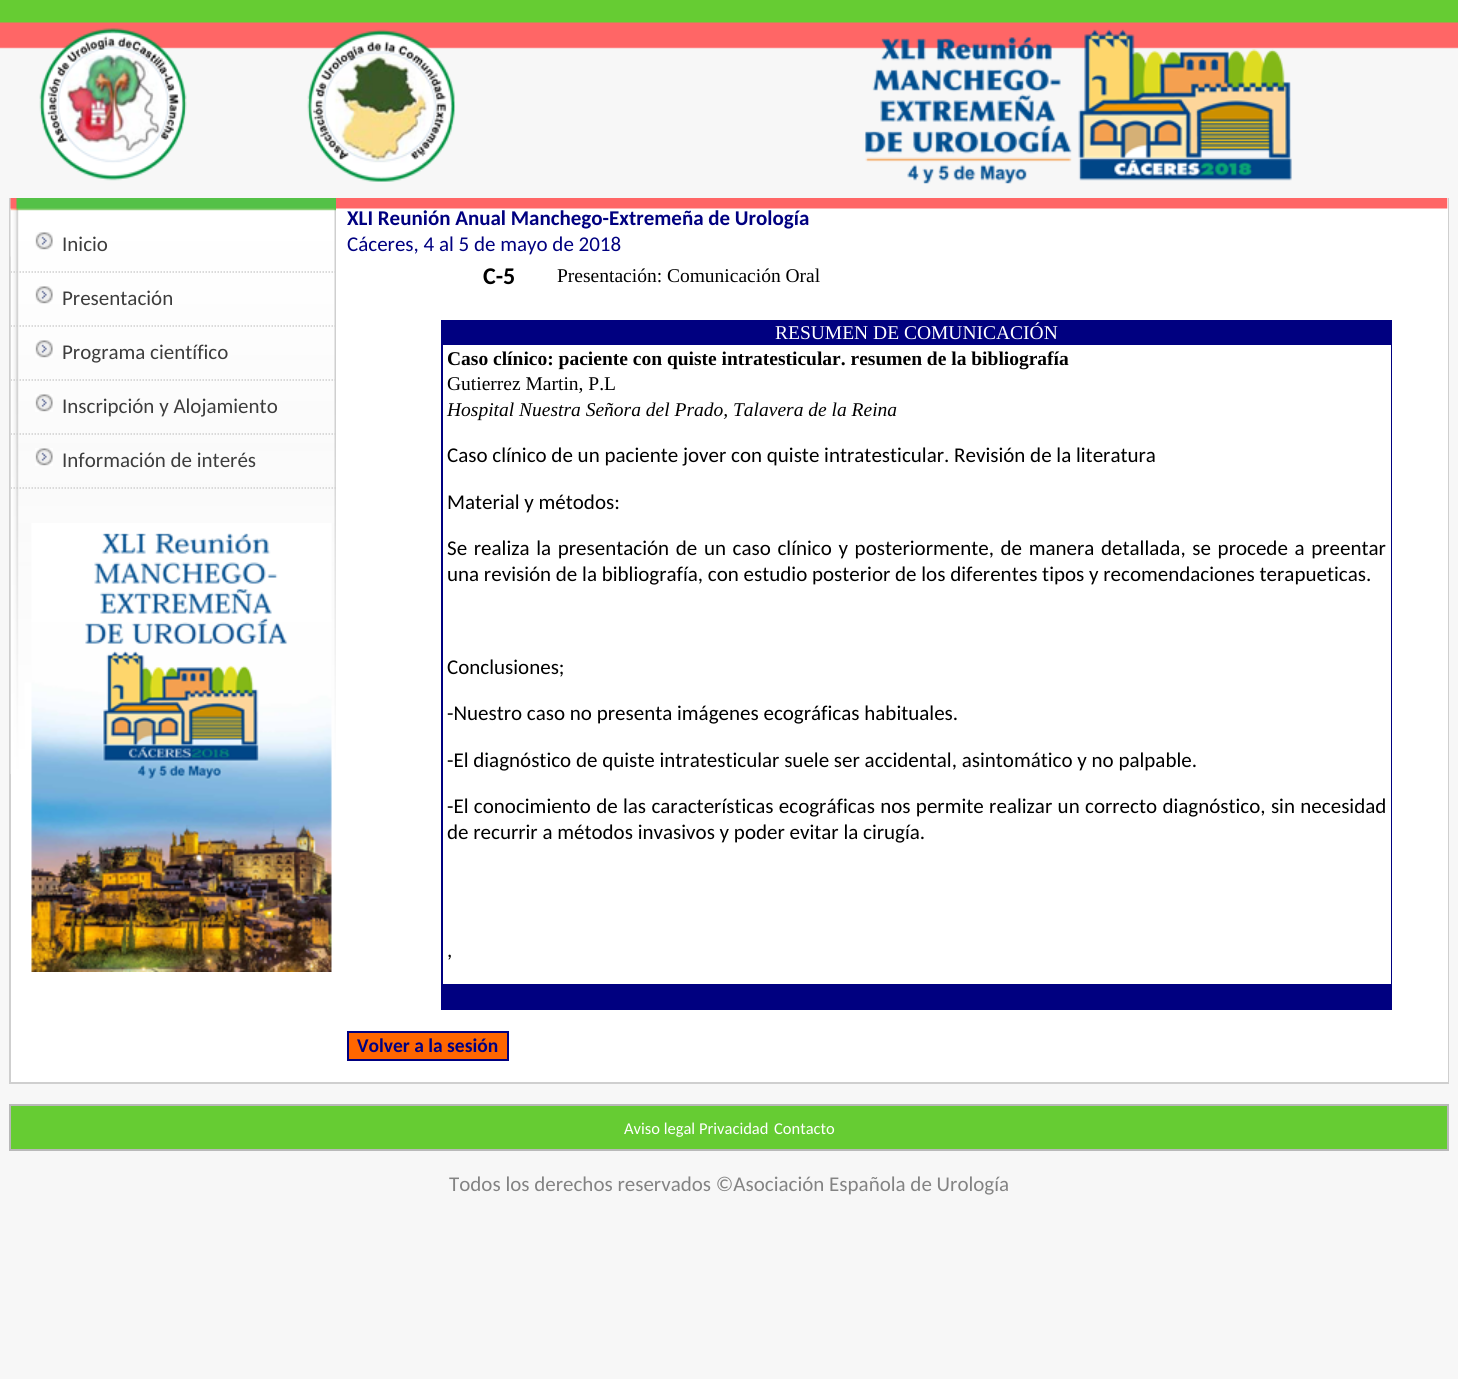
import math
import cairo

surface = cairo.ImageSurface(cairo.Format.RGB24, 1458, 1379)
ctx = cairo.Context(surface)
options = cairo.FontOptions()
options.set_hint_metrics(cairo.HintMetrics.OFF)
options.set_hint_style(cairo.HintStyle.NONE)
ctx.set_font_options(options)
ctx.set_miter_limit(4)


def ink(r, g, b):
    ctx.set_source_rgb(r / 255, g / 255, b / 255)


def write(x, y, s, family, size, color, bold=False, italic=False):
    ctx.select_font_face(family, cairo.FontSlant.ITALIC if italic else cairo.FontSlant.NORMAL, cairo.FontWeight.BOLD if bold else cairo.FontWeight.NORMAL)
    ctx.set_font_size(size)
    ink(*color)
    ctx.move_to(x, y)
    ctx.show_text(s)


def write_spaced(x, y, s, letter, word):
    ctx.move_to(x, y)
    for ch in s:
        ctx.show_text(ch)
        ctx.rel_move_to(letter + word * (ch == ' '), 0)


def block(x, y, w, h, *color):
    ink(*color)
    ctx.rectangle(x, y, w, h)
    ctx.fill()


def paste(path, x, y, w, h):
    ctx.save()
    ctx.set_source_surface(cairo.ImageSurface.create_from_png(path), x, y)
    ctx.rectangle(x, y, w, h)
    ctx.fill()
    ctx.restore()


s1 = dict(family="Carlito", size=21, color=(61, 61, 61))
s2 = dict(family="Carlito", size=21, color=(0, 0, 128), bold=True)
s3 = dict(family="Carlito", size=21, color=(0, 0, 128))
s4 = dict(family="Carlito", size=24, color=(0, 0, 0), bold=True)
s5 = dict(family="Liberation Serif", size=19.5, color=(0, 0, 0))
s6 = dict(family="Liberation Serif", size=19.5, color=(255, 255, 255))
s7 = dict(family="Liberation Serif", size=19.5, color=(0, 0, 0), bold=True)
s8 = dict(family="Liberation Serif", size=19.5, color=(0, 0, 0), italic=True)
s9 = dict(family="Carlito", size=21, color=(0, 0, 0))
s10 = dict(family="Carlito", size=19.5, color=(0, 0, 128), bold=True)
s11 = dict(family="Carlito", size=16.5, color=(255, 255, 255))
s12 = dict(family="Carlito", size=21, color=(131, 131, 131))

ink(247, 247, 247)
ctx.paint()
paste("pic1.png", 0, 0, 1458, 49)
paste("pic2.png", 865, 29, 427, 155)
paste("pic3.png", 39, 28, 417, 154)
block(11, 198, 1437, 884, 255, 255, 255)
block(1448, 198, 1, 885, 207, 207, 207)
block(9, 1082, 1440, 2, 207, 207, 207)
block(9, 198, 2, 885, 207, 207, 207)
paste("pic7.png", 10, 198, 1438, 59)
paste("pic4.png", 10, 198, 326, 576)
paste("pic5.png", 35, 232, 18, 18)
ctx.save()
ctx.rectangle(11, 198, 325, 807)
ctx.clip()
ctx.new_path()
ctx.move_to(10.5, 272)
ctx.line_to(361.5, 272)
ctx.set_line_width(1.5)
ctx.set_dash([1.5, 1.5])
ctx.stroke()
ctx.restore()
write(62, 251, "Inicio", **s1)
paste("pic5.png", 35, 286, 18, 18)
ctx.save()
ctx.rectangle(11, 198, 325, 807)
ctx.clip()
ctx.new_path()
ctx.move_to(10.5, 326)
ctx.line_to(361.5, 326)
ink(207, 207, 207)
ctx.set_line_width(1.5)
ctx.set_dash([1.5, 1.5])
ctx.stroke()
ctx.restore()
write(62, 305, "Presentación", **s1)
paste("pic5.png", 35, 340, 18, 18)
ctx.save()
ctx.rectangle(11, 198, 325, 807)
ctx.clip()
ctx.new_path()
ctx.move_to(10.5, 380)
ctx.line_to(361.5, 380)
ink(207, 207, 207)
ctx.set_line_width(1.5)
ctx.set_dash([1.5, 1.5])
ctx.stroke()
ctx.restore()
write(62, 359, "Programa científico", **s1)
paste("pic5.png", 35, 394, 18, 18)
ctx.save()
ctx.rectangle(11, 198, 325, 807)
ctx.clip()
ctx.new_path()
ctx.move_to(10.5, 434)
ctx.line_to(361.5, 434)
ink(207, 207, 207)
ctx.set_line_width(1.5)
ctx.set_dash([1.5, 1.5])
ctx.stroke()
ctx.restore()
write(62, 413, "Inscripción y Alojamiento", **s1)
paste("pic5.png", 35, 448, 18, 18)
ctx.save()
ctx.rectangle(11, 198, 325, 807)
ctx.clip()
ctx.new_path()
ctx.move_to(10.5, 488)
ctx.line_to(361.5, 488)
ink(207, 207, 207)
ctx.set_line_width(1.5)
ctx.set_dash([1.5, 1.5])
ctx.stroke()
ctx.restore()
write(62, 467, "Información de interés", **s1)
paste("pic6.png", 31, 523, 301, 449)
write(347, 225, "XLI Reunión Anual Manchego-Extremeña de Urología", **s2)
write(347, 251, "Cáceres, 4 al 5 de mayo de 2018", **s3)
write(483, 284, "C-5", **s4)
write(557, 282, "Presentación: Comunicación Oral", **s5)
block(441, 320, 951, 25, 0, 0, 128)
write(775, 339, "RESUMEN DE COMUNICACIÓN", **s6)
block(441, 345, 2, 665, 0, 0, 128)
write(447, 365, "Caso clínico: paciente con quiste intratesticular. resumen de la bibliografía", **s7)
block(1391, 345, 1, 639, 0, 0, 128)
write(447, 390, "Gutierrez Martin, P.L", **s5)
write(447, 416, "Hospital Nuestra Señora del Prado, Talavera de la Reina", **s8)
write(447, 462, "Caso clínico de un paciente jover con quiste intratesticular. Revisión de la literatura", **s9)
write(447, 509, "Material y métodos:", **s9)
write_spaced(447, 555, "Se realiza la presentación de un caso clínico y posteriormente, de manera detallada, se procede a preentar", 0, 1.9)
write(447, 581, "una revisión de la bibliografía, con estudio posterior de los diferentes tipos y recomendaciones terapueticas.", **s9)
write(447, 674, "Conclusiones;", **s9)
write(447, 720, "-Nuestro caso no presenta imágenes ecográficas habituales.", **s9)
write(447, 767, "-El diagnóstico de quiste intratesticular suele ser accidental, asintomático y no palpable.", **s9)
write_spaced(447, 813, "-El conocimiento de las características ecográficas nos permite realizar un correcto diagnóstico, sin necesidad", 0, 0.6)
write(447, 839, "de recurrir a métodos invasivos y poder evitar la cirugía.", **s9)
write(447, 957, ",", **s9)
block(443, 984, 949, 26, 0, 0, 128)
ink(255, 102, 0)
ctx.rectangle(348, 1032, 160, 28)
ctx.fill_preserve()
ink(0, 0, 128)
ctx.stroke()
write(357, 1052, "Volver a la sesión", **s10)
ink(102, 204, 51)
ctx.rectangle(10, 1105, 1438, 45)
ctx.fill_preserve()
ink(185, 185, 185)
ctx.stroke()
write(624, 1134, "Aviso legal", **s11)
write(699, 1134, "Privacidad", **s11)
write(774, 1134, "Contacto", **s11)
write(449, 1191, "Todos los derechos reservados ©Asociación Española de Urología", **s12)
surface.write_to_png("screenshot.png")
